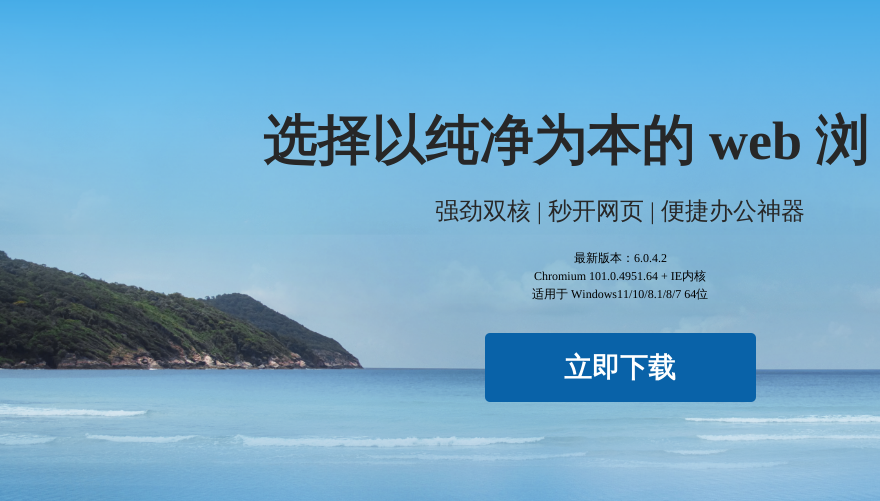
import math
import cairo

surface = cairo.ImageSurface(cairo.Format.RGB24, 880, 501)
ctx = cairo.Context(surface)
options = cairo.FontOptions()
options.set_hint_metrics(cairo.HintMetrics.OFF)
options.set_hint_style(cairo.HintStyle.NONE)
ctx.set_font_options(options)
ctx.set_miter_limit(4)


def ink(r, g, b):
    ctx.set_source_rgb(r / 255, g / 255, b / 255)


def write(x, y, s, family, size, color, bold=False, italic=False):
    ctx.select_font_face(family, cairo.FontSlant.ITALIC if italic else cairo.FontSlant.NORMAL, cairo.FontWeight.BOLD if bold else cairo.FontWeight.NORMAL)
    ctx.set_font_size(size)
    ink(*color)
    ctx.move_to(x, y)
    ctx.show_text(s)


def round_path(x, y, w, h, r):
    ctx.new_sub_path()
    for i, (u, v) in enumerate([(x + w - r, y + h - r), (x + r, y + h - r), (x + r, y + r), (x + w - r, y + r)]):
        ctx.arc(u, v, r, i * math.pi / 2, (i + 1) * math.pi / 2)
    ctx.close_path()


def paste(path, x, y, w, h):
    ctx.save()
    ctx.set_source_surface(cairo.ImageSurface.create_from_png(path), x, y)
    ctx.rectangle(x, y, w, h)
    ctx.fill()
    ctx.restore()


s1 = dict(family="WenQuanYi Zen Hei", size=54, color=(39, 39, 39), bold=True)
s2 = dict(family="Liberation Serif", size=54, color=(39, 39, 39), bold=True)
s3 = dict(family="WenQuanYi Zen Hei Medium", size=24, color=(39, 39, 39))
s4 = dict(family="Liberation Serif", size=24, color=(39, 39, 39))
s5 = dict(family="WenQuanYi Zen Hei Medium", size=12, color=(0, 0, 0))
s6 = dict(family="Liberation Serif", size=12, color=(0, 0, 0))
s7 = dict(family="WenQuanYi Zen Hei", size=28, color=(255, 255, 255), bold=True)

ink(255, 255, 255)
ctx.paint()
paste("pic1.png", 0, 0, 880, 501)
write(263, 159, "选择以纯净为本的", **s1)
write(709, 159, "web", **s2)
write(815, 159, "浏", **s1)
write(435, 219, "强劲双核", **s3)
write(537, 219, "|", **s4)
write(548, 219, "秒开网页", **s3)
write(650, 219, "|", **s4)
write(661, 219, "便捷办公神器", **s3)
write(574, 262, "最新版本：", **s5)
write(634, 262, "6.0.4.2", **s6)
write(534, 280, "Chromium 101.0.4951.64 + IE", **s6)
write(682, 280, "内核", **s5)
write(532, 298, "适用于", **s5)
write(571, 298, "Windows11/10/8.1/8/7 64", **s6)
write(696, 298, "位", **s5)
ink(9, 98, 168)
round_path(485, 333, 271, 69, 5)
ctx.fill()
write(564, 377, "立即下载", **s7)
surface.write_to_png("screenshot.png")
